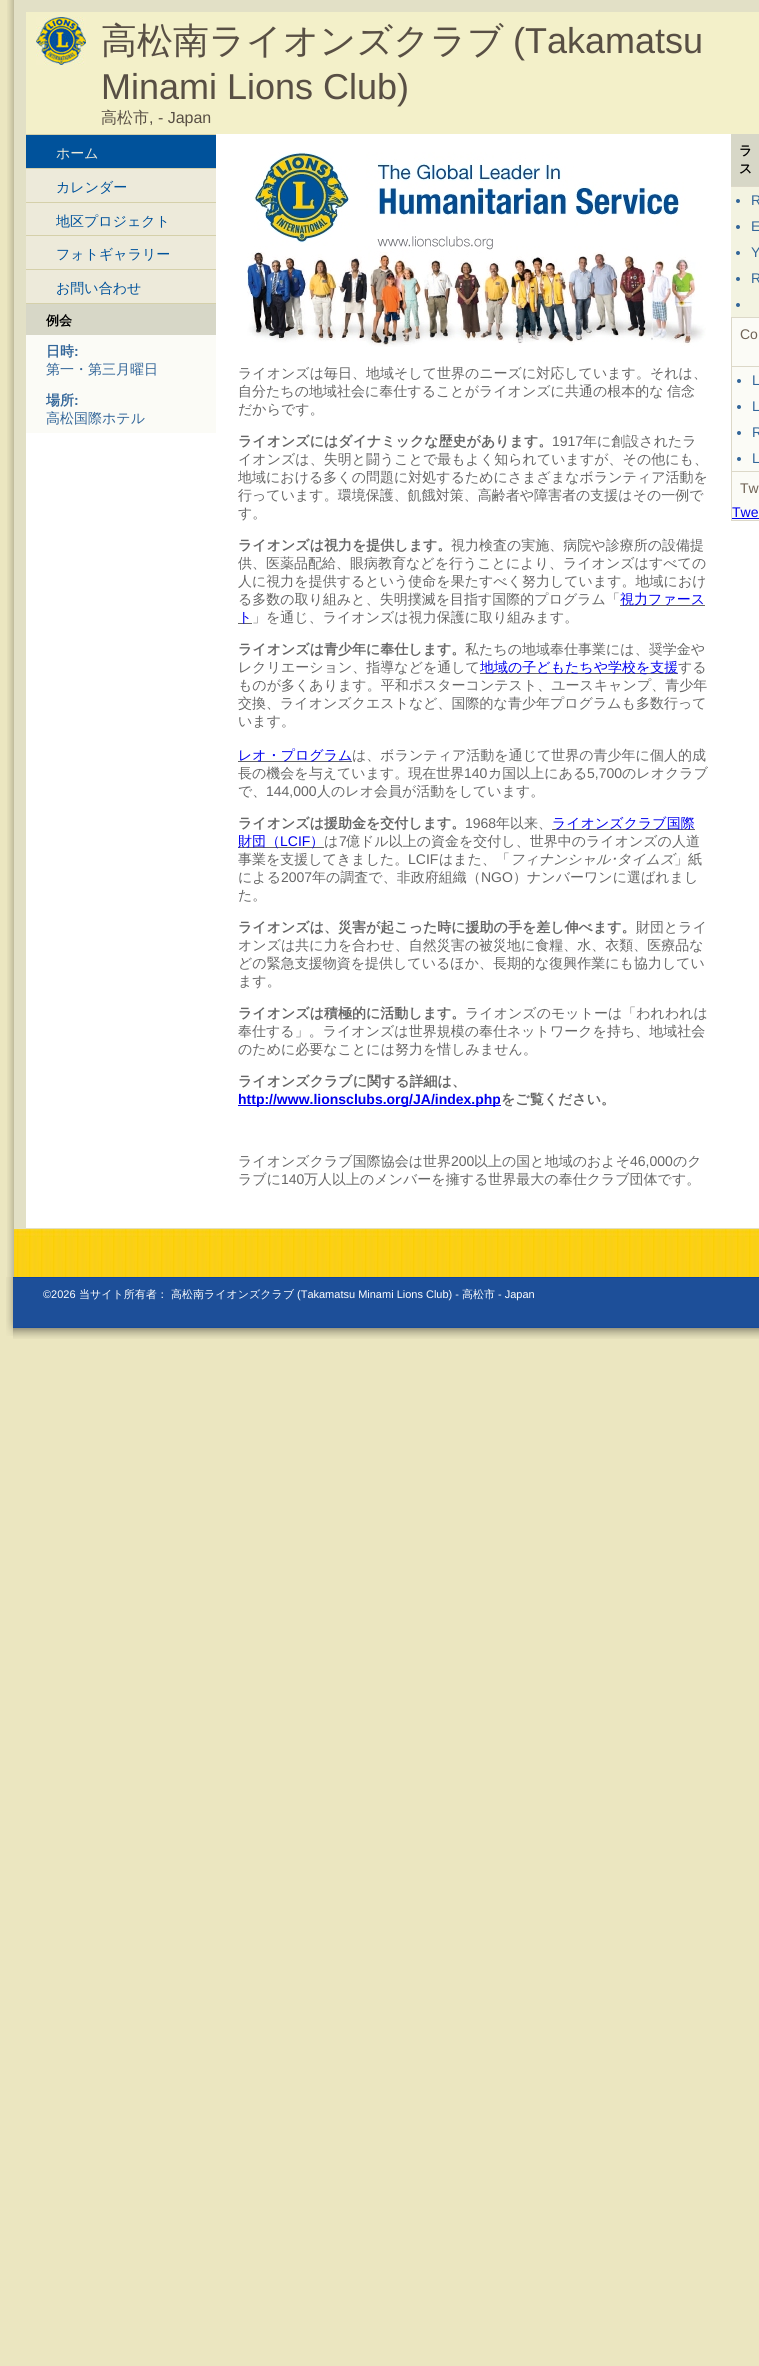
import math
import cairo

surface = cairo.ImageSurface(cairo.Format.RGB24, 759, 2366)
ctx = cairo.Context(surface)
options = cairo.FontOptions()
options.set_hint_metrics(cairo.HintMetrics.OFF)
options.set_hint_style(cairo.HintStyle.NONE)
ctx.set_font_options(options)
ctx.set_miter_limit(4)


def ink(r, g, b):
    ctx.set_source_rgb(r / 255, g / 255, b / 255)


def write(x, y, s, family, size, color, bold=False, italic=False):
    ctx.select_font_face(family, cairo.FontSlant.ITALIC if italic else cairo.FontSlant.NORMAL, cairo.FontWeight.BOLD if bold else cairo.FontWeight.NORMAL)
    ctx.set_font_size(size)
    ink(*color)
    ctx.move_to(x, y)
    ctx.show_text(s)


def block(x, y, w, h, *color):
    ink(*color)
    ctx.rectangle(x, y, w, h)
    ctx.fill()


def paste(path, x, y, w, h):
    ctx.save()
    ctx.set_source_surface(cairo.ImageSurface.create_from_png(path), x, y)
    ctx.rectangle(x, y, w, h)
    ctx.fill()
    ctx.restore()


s1 = dict(family="WenQuanYi Zen Hei Medium", size=36, color=(88, 79, 68))
s2 = dict(family="Liberation Sans", size=36, color=(88, 79, 68))
s3 = dict(family="WenQuanYi Zen Hei Medium", size=16, color=(88, 79, 68))
s4 = dict(family="Liberation Sans", size=16, color=(88, 79, 68))
s5 = dict(family="WenQuanYi Zen Hei Medium", size=14, color=(237, 234, 218))
s6 = dict(family="WenQuanYi Zen Hei Medium", size=14, color=(0, 82, 155))
s7 = dict(family="WenQuanYi Zen Hei", size=13, color=(0, 0, 0), bold=True)
s8 = dict(family="WenQuanYi Zen Hei", size=14, color=(51, 102, 153), bold=True)
s9 = dict(family="Liberation Sans", size=14, color=(51, 102, 153), bold=True)
s10 = dict(family="WenQuanYi Zen Hei Medium", size=14, color=(51, 102, 153))
s11 = dict(family="Liberation Sans", size=14, color=(51, 102, 153))
s12 = dict(family="Liberation Sans", size=14, color=(112, 99, 86))
s13 = dict(family="Liberation Sans", size=14, color=(0, 0, 238))
s14 = dict(family="WenQuanYi Zen Hei Medium", size=14, color=(102, 102, 102))
s15 = dict(family="WenQuanYi Zen Hei", size=14, color=(102, 102, 102), bold=True)
s16 = dict(family="Liberation Sans", size=14, color=(102, 102, 102))
s17 = dict(family="WenQuanYi Zen Hei Medium", size=14, color=(0, 0, 238))
s18 = dict(family="WenQuanYi Zen Hei Medium", size=14, color=(102, 102, 102), italic=True)
s19 = dict(family="IPAGothic", size=14, color=(102, 102, 102), italic=True)
s20 = dict(family="Liberation Sans", size=14, color=(0, 0, 238), bold=True)
s21 = dict(family="Liberation Sans", size=11, color=(255, 255, 255))
s22 = dict(family="WenQuanYi Zen Hei Medium", size=11, color=(255, 255, 255))

ink(235, 230, 192)
ctx.paint()
paste("pic1.png", 7, 0, 7, 1277)
block(14, 0, 745, 1229, 226, 224, 198)
paste("pic2.png", 14, 1229, 745, 48)
block(26, 12, 733, 122, 243, 240, 201)
paste("pic3.png", 36, 17, 50, 48)
write(101, 53, "高松南ライオンズクラブ", **s1)
write(513, 53, "(Takamatsu", **s2)
write(101, 99, "Minami Lions Club)", **s2)
write(101, 123, "高松市", **s3)
write(149, 123, ", - Japan", **s4)
block(26, 134, 733, 1094, 255, 255, 255)
block(26, 134, 190, 1, 213, 208, 170)
block(26, 168, 190, 1, 213, 208, 170)
block(26, 135, 190, 33, 0, 82, 155)
write(56, 158, "ホーム", **s5)
block(26, 202, 190, 1, 213, 208, 170)
block(26, 169, 190, 33, 237, 234, 218)
write(56, 192, "カレンダー", **s6)
block(26, 235, 190, 1, 213, 208, 170)
block(26, 203, 190, 32, 237, 234, 218)
write(56, 226, "地区プロジェクト", **s6)
block(26, 269, 190, 1, 213, 208, 170)
block(26, 236, 190, 33, 237, 234, 218)
write(56, 259, "フォトギャラリー", **s6)
block(26, 303, 190, 1, 213, 208, 170)
block(26, 270, 190, 33, 237, 234, 218)
write(56, 293, "お問い合わせ", **s6)
block(26, 335, 190, 98, 251, 251, 246)
block(26, 304, 190, 31, 215, 215, 199)
write(46, 325, "例会", **s7)
write(46, 356, "日時", **s8)
write(74, 356, ":", **s9)
write(46, 374, "第一・第三月曜日", **s10)
write(46, 405, "場所", **s8)
write(74, 405, ":", **s9)
write(46, 423, "高松国際ホテル", **s10)
block(731, 187, 28, 130, 243, 243, 225)
block(731, 134, 28, 52, 215, 215, 199)
write(739, 155, "ラ", **s7)
write(739, 173, "ス", **s7)
block(731, 186, 28, 1, 220, 216, 200)
ink(51, 102, 153)
ctx.new_path()
ctx.arc(738, 201, 2, 0, 2 * math.pi)
ctx.fill()
write(751, 205, "R", **s11)
ctx.new_path()
ctx.arc(738, 227, 2, 0, 2 * math.pi)
ctx.fill()
write(751, 231, "E", **s11)
ctx.new_path()
ctx.arc(738, 253, 2, 0, 2 * math.pi)
ctx.fill()
write(751, 257, "Y", **s11)
ctx.new_path()
ctx.arc(738, 279, 2, 0, 2 * math.pi)
ctx.fill()
write(751, 283, "R", **s11)
ctx.new_path()
ctx.arc(738, 305, 2, 0, 2 * math.pi)
ctx.fill()
block(731, 317, 28, 1, 220, 216, 200)
block(732, 318, 27, 48, 251, 251, 246)
block(731, 318, 1, 48, 220, 216, 200)
write(740, 339, "Co", **s12)
block(731, 366, 28, 1, 220, 216, 200)
block(732, 367, 27, 104, 251, 251, 246)
block(731, 367, 1, 104, 220, 216, 200)
ink(51, 102, 153)
ctx.new_path()
ctx.arc(739, 381, 2, 0, 2 * math.pi)
ctx.fill()
write(752, 385, "L", **s11)
ctx.new_path()
ctx.arc(739, 407, 2, 0, 2 * math.pi)
ctx.fill()
write(752, 411, "L", **s11)
ctx.new_path()
ctx.arc(739, 433, 2, 0, 2 * math.pi)
ctx.fill()
write(752, 437, "R", **s11)
ctx.new_path()
ctx.arc(739, 459, 2, 0, 2 * math.pi)
ctx.fill()
write(752, 463, "L", **s11)
block(731, 471, 28, 1, 220, 216, 200)
block(732, 472, 27, 48, 251, 251, 246)
block(731, 472, 1, 48, 220, 216, 200)
write(740, 493, "Tw", **s12)
write(732, 517, "Twe", **s13)
block(732, 518, 27, 1, 0, 0, 238)
block(731, 520, 28, 1, 220, 216, 200)
paste("pic4.png", 247, 152, 459, 195)
write(238, 378, "ライオンズは毎日、地域そして世界のニーズに対応しています。それは、", **s14)
write(238, 396, "自分たちの地域社会に奉仕することがライオンズに共通の根本的な", **s14)
write(667, 396, "信念", **s14)
write(238, 414, "だからです。", **s14)
write(238, 446, "ライオンズにはダイナミックな歴史があります。", **s15)
write(552, 446, "1917", **s16)
write(583, 446, "年に創設されたラ", **s14)
write(238, 464, "イオンズは、失明と闘うことで最もよく知られていますが、その他にも、", **s14)
write(238, 482, "地域における多くの問題に対処するためにさまざまなボランティア活動を", **s14)
write(238, 500, "行っています。環境保護、飢餓対策、高齢者や障害者の支援はその一例で", **s14)
write(238, 518, "す。", **s14)
write(238, 550, "ライオンズは視力を提供します。", **s15)
write(451, 550, "視力検査の実施、病院や診療所の設備提", **s14)
write(238, 568, "供、医薬品配給、眼病教育などを行うことにより、ライオンズはすべての", **s14)
write(238, 586, "人に視力を提供するという使命を果たすべく努力しています。地域におけ", **s14)
write(238, 604, "る多数の取り組みと、失明撲滅を目指す国際的プログラム「", **s14)
block(620, 605, 85, 1, 102, 102, 102)
write(620, 604, "視力ファース", **s17)
block(238, 623, 14, 1, 102, 102, 102)
write(238, 622, "ト", **s17)
write(252, 622, "」を通じ、ライオンズは視力保護に取り組みます。", **s14)
write(238, 654, "ライオンズは青少年に奉仕します。", **s15)
write(465, 654, "私たちの地域奉仕事業には、奨学金や", **s14)
write(238, 672, "レクリエーション、指導などを通して", **s14)
block(480, 673, 198, 1, 102, 102, 102)
write(480, 672, "地域の子どもたちや学校を支援", **s17)
write(678, 672, "する", **s14)
write(238, 690, "ものが多くあります。平和ポスターコンテスト、ユースキャンプ、青少年", **s14)
write(238, 708, "交換、ライオンズクエストなど、国際的な青少年プログラムも多数行って", **s14)
write(238, 726, "います。", **s14)
block(238, 761, 114, 1, 102, 102, 102)
write(238, 760, "レオ・プログラム", **s17)
write(352, 760, "は、ボランティア活動を通じて世界の青少年に個人的成", **s14)
write(238, 778, "長の機会を与えています。現在世界", **s14)
write(464, 778, "140", **s16)
write(488, 778, "カ国以上にある", **s14)
write(587, 778, "5,700", **s16)
write(622, 778, "のレオクラブ", **s14)
write(238, 796, "で、", **s14)
write(266, 796, "144,000", **s16)
write(317, 796, "人のレオ会員が活動をしています。", **s14)
write(238, 828, "ライオンズは援助金を交付します。", **s15)
write(465, 828, "1968", **s16)
write(496, 828, "年以来、", **s14)
block(552, 829, 143, 1, 102, 102, 102)
write(552, 828, "ライオンズクラブ国際", **s17)
block(238, 847, 86, 1, 102, 102, 102)
write(238, 846, "財団（", **s17)
write(280, 846, "LCIF", **s13)
write(310, 846, "）", **s17)
write(324, 846, "は", **s14)
write(339, 846, "7", **s16)
write(346, 846, "億ドル以上の資金を交付し、世界中のライオンズの人道", **s14)
write(238, 864, "事業を支援してきました。", **s14)
write(408, 864, "LCIF", **s16)
write(439, 864, "はまた、「", **s14)
write(510, 864, "フィナンシャル", **s18)
write(610, 864, "･", **s19)
write(617, 864, "タイムズ", **s18)
write(674, 864, "」紙", **s14)
write(238, 882, "による", **s14)
write(281, 882, "2007", **s16)
write(312, 882, "年の調査で、非政府組織（", **s14)
write(481, 882, "NGO", **s16)
write(513, 882, "）ナンバーワンに選ばれまし", **s14)
write(238, 900, "た。", **s14)
write(238, 932, "ライオンズは、災害が起こった時に援助の手を差し伸べます。", **s15)
write(636, 932, "財団とライ", **s14)
write(238, 950, "オンズは共に力を合わせ、自然災害の被災地に食糧、水、衣類、医療品な", **s14)
write(238, 968, "どの緊急支援物資を提供しているほか、長期的な復興作業にも協力してい", **s14)
write(238, 986, "ます。", **s14)
write(238, 1018, "ライオンズは積極的に活動します。", **s15)
write(465, 1018, "ライオンズのモットーは「われわれは", **s14)
write(238, 1036, "奉仕する」。ライオンズは世界規模の奉仕ネットワークを持ち、地域社会", **s14)
write(238, 1054, "のために必要なことには努力を惜しみません。", **s14)
write(238, 1086, "ライオンズクラブに関する詳細は、", **s15)
block(238, 1105, 263, 1, 0, 0, 238)
write(238, 1104, "http://www.lionsclubs.org/JA/index.php", **s20)
write(501, 1104, "をご覧ください。", **s15)
write(238, 1166, "ライオンズクラブ国際協会は世界", **s14)
write(451, 1166, "200", **s16)
write(474, 1166, "以上の国と地域のおよそ", **s14)
write(630, 1166, "46,000", **s16)
write(673, 1166, "のク", **s14)
write(238, 1184, "ラブに", **s14)
write(281, 1184, "140", **s16)
write(304, 1184, "万人以上のメンバーを擁する世界最大の奉仕クラブ団体です。", **s14)
paste("pic5.png", 6, 1277, 7, 59)
paste("pic6.png", 13, 1277, 746, 62)
write(43, 1298, "©2026", **s21)
write(79, 1298, "当サイト所有者： 高松南ライオンズクラブ", **s22)
write(297, 1298, "(Takamatsu Minami Lions Club) -", **s21)
write(462, 1298, "高松市", **s22)
write(498, 1298, "- Japan", **s21)
surface.write_to_png("screenshot.png")
